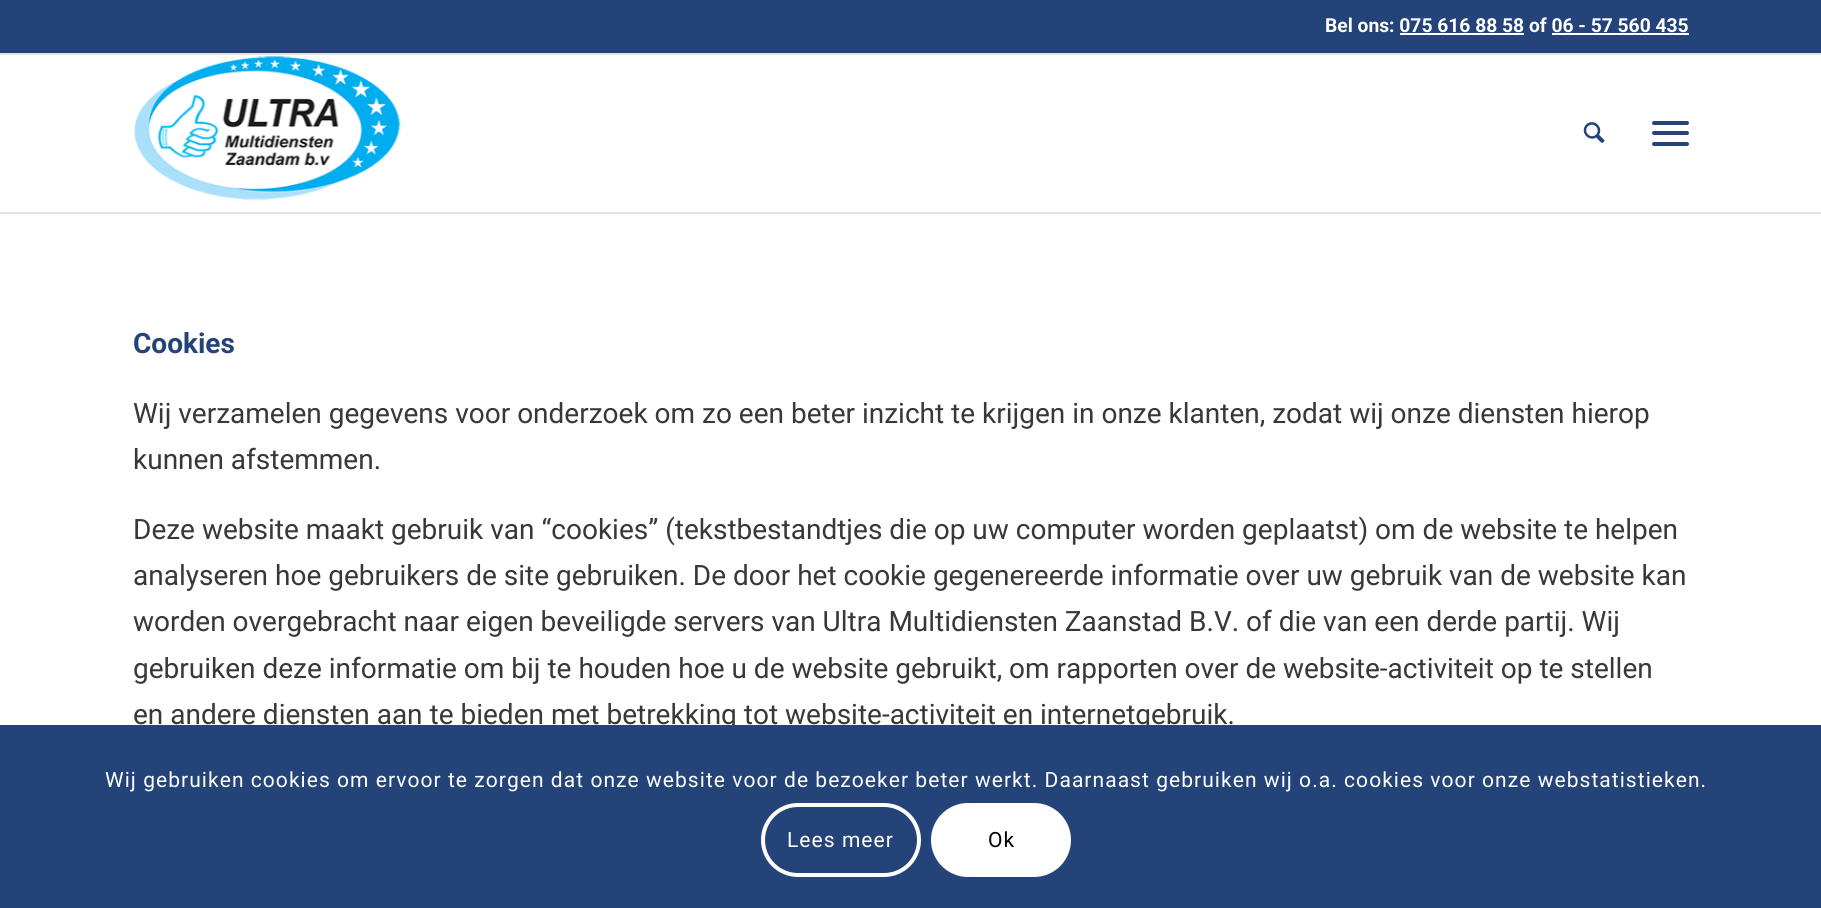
import math
import cairo

surface = cairo.ImageSurface(cairo.Format.RGB24, 1821, 908)
ctx = cairo.Context(surface)
options = cairo.FontOptions()
options.set_hint_metrics(cairo.HintMetrics.OFF)
options.set_hint_style(cairo.HintStyle.NONE)
ctx.set_font_options(options)
ctx.set_miter_limit(4)


def ink(r, g, b):
    ctx.set_source_rgb(r / 255, g / 255, b / 255)


def write(x, y, s, family, size, color, bold=False, italic=False):
    ctx.select_font_face(family, cairo.FontSlant.ITALIC if italic else cairo.FontSlant.NORMAL, cairo.FontWeight.BOLD if bold else cairo.FontWeight.NORMAL)
    ctx.set_font_size(size)
    ink(*color)
    ctx.move_to(x, y)
    ctx.show_text(s)


def write_spaced(x, y, s, letter, word):
    ctx.move_to(x, y)
    for ch in s:
        ctx.show_text(ch)
        ctx.rel_move_to(letter + word * (ch == ' '), 0)


def block(x, y, w, h, *color):
    ink(*color)
    ctx.rectangle(x, y, w, h)
    ctx.fill()


def round_path(x, y, w, h, r):
    ctx.new_sub_path()
    for i, (u, v) in enumerate([(x + w - r, y + h - r), (x + r, y + h - r), (x + r, y + r), (x + w - r, y + r)]):
        ctx.arc(u, v, r, i * math.pi / 2, (i + 1) * math.pi / 2)
    ctx.close_path()


def paste(path, x, y, w, h):
    ctx.save()
    ctx.set_source_surface(cairo.ImageSurface.create_from_png(path), x, y)
    ctx.rectangle(x, y, w, h)
    ctx.fill()
    ctx.restore()


s1 = dict(family="Roboto", size=19.25, color=(255, 255, 255), bold=True)
s2 = dict(family="Roboto", size=28, color=(35, 67, 121), bold=True)
s3 = dict(family="Roboto", size=28, color=(56, 56, 56))

ink(255, 255, 255)
ctx.paint()
block(0, 0, 1821, 53, 35, 67, 121)
block(0, 53, 1821, 2, 225, 225, 225)
write(1325, 32, "Bel ons: 075 616 88 58 of 06 - 57 560 435", **s1)
block(1400, 33, 124, 2, 255, 255, 255)
block(1552, 33, 137, 2, 255, 255, 255)
block(0, 212, 1821, 2, 225, 225, 225)
paste("pic1.png", 134, 56, 267, 145)
paste("pic2.png", 1583, 122, 22, 21)
ink(35, 67, 121)
round_path(1652, 131, 37, 4, 2)
ctx.fill()
round_path(1652, 121, 37, 4, 2)
ctx.fill()
round_path(1652, 142, 37, 4, 2)
ctx.fill()
write(133, 353, "Cookies", **s2)
write(133, 423, "Wij verzamelen gegevens voor onderzoek om zo een beter inzicht te krijgen in onze klanten, zodat wij onze diensten hierop", **s3)
write(133, 469, "kunnen afstemmen.", **s3)
write(133, 539, "Deze website maakt gebruik van “cookies” (tekstbestandtjes die op uw computer worden geplaatst) om de website te helpen", **s3)
write(133, 585, "analyseren hoe gebruikers de site gebruiken. De door het cookie gegenereerde informatie over uw gebruik van de website kan", **s3)
write(133, 631, "worden overgebracht naar eigen beveiligde servers van Ultra Multidiensten Zaanstad B.V. of die van een derde partij. Wij", **s3)
write(133, 678, "gebruiken deze informatie om bij te houden hoe u de website gebruikt, om rapporten over de website-activiteit op te stellen", **s3)
write(133, 724, "en andere diensten aan te bieden met betrekking tot website-activiteit en internetgebruik.", **s3)
block(0, 725, 1821, 183, 35, 67, 121)
ctx.set_font_size(21)
ink(255, 255, 255)
write_spaced(105, 787, "Wij gebruiken cookies om ervoor te zorgen dat onze website voor de bezoeker beter werkt. Daarnaast gebruiken wij o.a. cookies voor onze webstatistieken.", 1.05, 0)
round_path(763, 805, 156, 70, 35)
ctx.set_line_width(4)
ctx.stroke()
write_spaced(787, 847, "Lees meer", 1.05, 0)
round_path(931, 803, 140, 74, 37)
ctx.fill()
ink(0, 0, 0)
write_spaced(988, 847, "Ok", 1.05, 0)
surface.write_to_png("screenshot.png")
